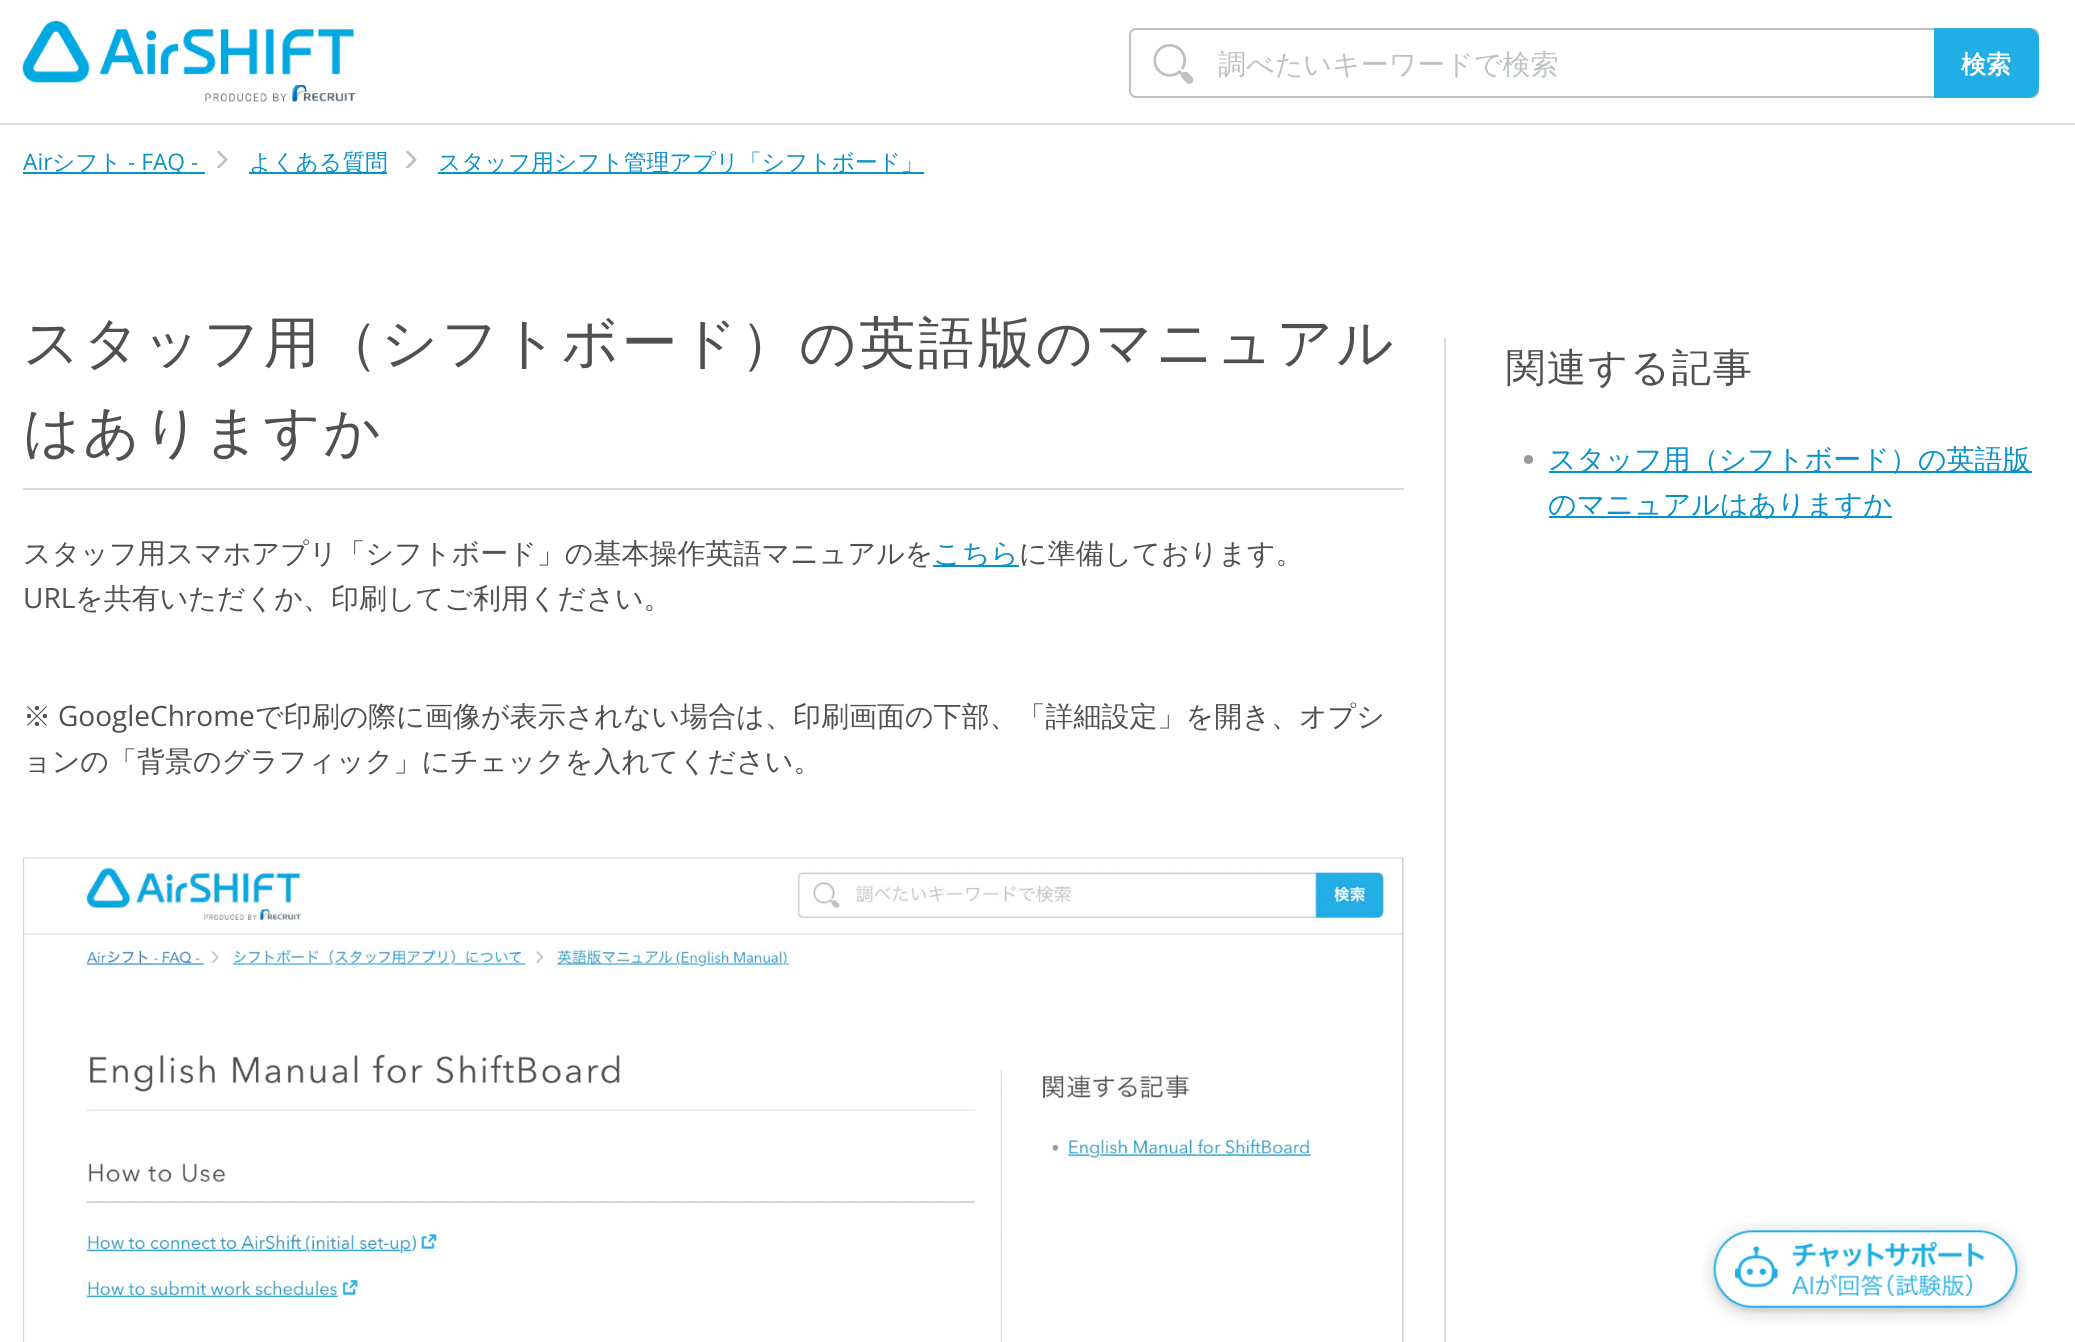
import math
import cairo

surface = cairo.ImageSurface(cairo.Format.RGB24, 2075, 1342)
ctx = cairo.Context(surface)
options = cairo.FontOptions()
options.set_hint_metrics(cairo.HintMetrics.OFF)
options.set_hint_style(cairo.HintStyle.NONE)
ctx.set_font_options(options)
ctx.set_miter_limit(4)


def ink(r, g, b):
    ctx.set_source_rgb(r / 255, g / 255, b / 255)


def write(x, y, s, family, size, color, bold=False, italic=False):
    ctx.select_font_face(family, cairo.FontSlant.ITALIC if italic else cairo.FontSlant.NORMAL, cairo.FontWeight.BOLD if bold else cairo.FontWeight.NORMAL)
    ctx.set_font_size(size)
    ink(*color)
    ctx.move_to(x, y)
    ctx.show_text(s)


def write_spaced(x, y, s, letter, word):
    ctx.move_to(x, y)
    for ch in s:
        ctx.show_text(ch)
        ctx.rel_move_to(letter + word * (ch == ' '), 0)


def block(x, y, w, h, *color):
    ink(*color)
    ctx.rectangle(x, y, w, h)
    ctx.fill()


def round_path(x, y, w, h, r):
    ctx.new_sub_path()
    for i, (u, v) in enumerate([(x + w - r, y + h - r), (x + r, y + h - r), (x + r, y + r), (x + w - r, y + r)]):
        ctx.arc(u, v, r, i * math.pi / 2, (i + 1) * math.pi / 2)
    ctx.close_path()


def paste(path, x, y, w, h):
    ctx.save()
    ctx.set_source_surface(cairo.ImageSurface.create_from_png(path), x, y)
    ctx.rectangle(x, y, w, h)
    ctx.fill()
    ctx.restore()


s1 = dict(family="WenQuanYi Zen Hei Medium", size=28, color=(189, 195, 196))
s2 = dict(family="WenQuanYi Zen Hei", size=25, color=(255, 255, 255), bold=True)
s3 = dict(family="Open Sans", size=22.75, color=(8, 146, 199))
s4 = dict(family="WenQuanYi Zen Hei Medium", size=22.75, color=(8, 146, 199))
s5 = dict(family="WenQuanYi Zen Hei Medium", size=28, color=(80, 80, 80))
s6 = dict(family="WenQuanYi Zen Hei Medium", size=28, color=(8, 146, 199))
s7 = dict(family="Open Sans", size=28, color=(80, 80, 80))

ink(255, 255, 255)
ctx.paint()
paste("pic1.png", 22, 21, 334, 81)
block(0, 123, 2075, 2, 221, 221, 221)
round_path(1130, 29, 908, 68, 6)
ink(189, 195, 196)
ctx.stroke()
paste("pic2.png", 1153, 44, 41, 40)
write(1218, 74, "調べたいキーワードで検索", **s1)
ink(32, 174, 229)
ctx.new_path()
ctx.move_to(1934, 28)
ctx.line_to(2028, 28)
ctx.curve_to(2034, 28, 2039, 33, 2039, 39)
ctx.line_to(2039, 87)
ctx.curve_to(2039, 93, 2034, 98, 2028, 98)
ctx.line_to(1934, 98)
ctx.close_path()
ctx.fill()
write(1961, 73, "検索", **s2)
write(23, 170, "Air", **s3)
block(23, 172, 182, 2, 8, 146, 199)
write(52, 170, "シフト", **s4)
write(128, 170, "- FAQ -", **s3)
paste("pic3.png", 217, 151, 11, 17)
block(249, 172, 138, 2, 8, 146, 199)
write(249, 170, "よくある質問", **s4)
paste("pic3.png", 406, 151, 11, 17)
block(438, 172, 486, 2, 8, 146, 199)
write(438, 170, "スタッフ用シフト管理アプリ「シフトボード」", **s4)
block(23, 488, 1381, 2, 221, 221, 221)
ctx.set_font_size(56)
ink(80, 80, 80)
write_spaced(23, 362, "スタッフ用（シフトボード）の英語版のマニュアル", 2.8, 0)
write_spaced(23, 451, "はありますか", 2.8, 0)
write(23, 563, "スタッフ用スマホアプリ「シフトボード」の基本操作英語マニュアルを", **s5)
block(933, 565, 86, 2, 8, 146, 199)
write(933, 563, "こちら", **s6)
write(1019, 563, "に準備しております。", **s5)
write(23, 608, "URL", **s7)
write(75, 608, "を共有いただくか、印刷してご利用ください。", **s5)
write(23, 726, "※", **s5)
write(58, 726, "GoogleChrome", **s7)
write(255, 726, "で印刷の際に画像が表示されない場合は、印刷画面の下部、「詳細設定」を開き、オプシ", **s5)
write(23, 771, "ョンの「背景のグラフィック」にチェックを入れてください。", **s5)
paste("pic4.png", 23, 857, 1381, 485)
block(1444, 338, 2, 1004, 221, 221, 221)
ctx.set_font_size(39.25)
ink(80, 80, 80)
write_spaced(1506, 381, "関連する記事", 1.75, 0)
ink(153, 153, 153)
ctx.new_path()
ctx.arc(1528.5, 459.5, 4.5, 0, 2 * math.pi)
ctx.fill()
block(1549, 471, 483, 2, 8, 146, 199)
write(1548, 469, "スタッフ用（シフトボード）の英語版", **s6)
block(1549, 516, 343, 2, 8, 146, 199)
write(1548, 514, "のマニュアルはありますか", **s6)
paste("pic5.png", 1703, 1221, 325, 103)
surface.write_to_png("screenshot.png")
